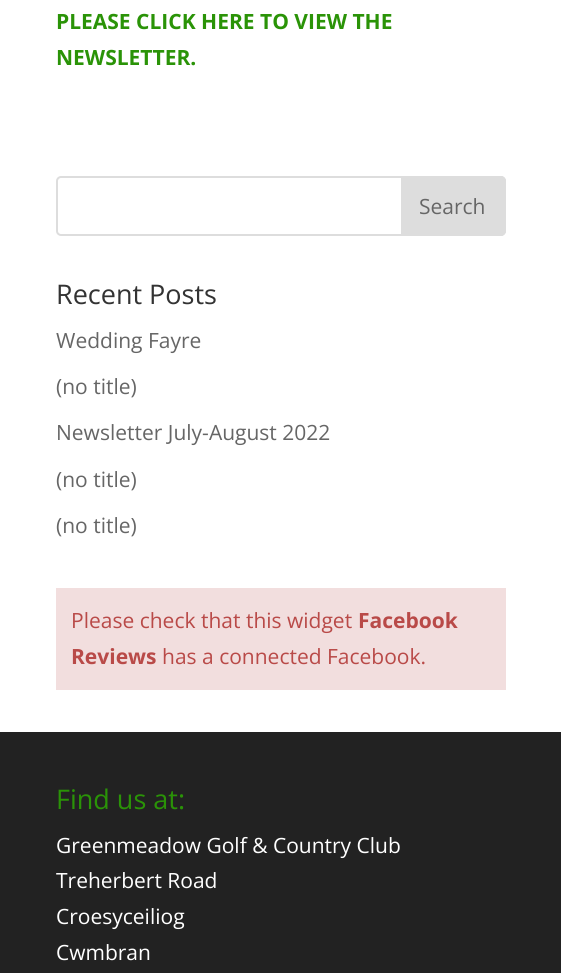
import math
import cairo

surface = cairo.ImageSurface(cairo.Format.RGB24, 561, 973)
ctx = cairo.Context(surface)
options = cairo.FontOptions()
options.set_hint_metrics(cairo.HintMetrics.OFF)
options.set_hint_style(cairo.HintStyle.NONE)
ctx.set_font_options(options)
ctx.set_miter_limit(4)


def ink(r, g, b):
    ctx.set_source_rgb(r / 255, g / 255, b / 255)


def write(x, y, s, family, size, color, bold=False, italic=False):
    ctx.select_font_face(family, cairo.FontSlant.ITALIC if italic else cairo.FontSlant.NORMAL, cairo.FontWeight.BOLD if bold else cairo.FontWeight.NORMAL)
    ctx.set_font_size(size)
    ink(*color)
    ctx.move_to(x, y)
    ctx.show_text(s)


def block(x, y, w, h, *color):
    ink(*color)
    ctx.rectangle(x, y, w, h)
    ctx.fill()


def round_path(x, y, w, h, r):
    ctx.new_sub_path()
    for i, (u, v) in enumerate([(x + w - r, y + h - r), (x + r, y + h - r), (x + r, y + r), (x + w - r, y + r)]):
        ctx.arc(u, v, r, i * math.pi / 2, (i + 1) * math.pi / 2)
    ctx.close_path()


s1 = dict(family="Open Sans", size=21, color=(42, 147, 7), bold=True)
s2 = dict(family="Open Sans", size=21, color=(102, 102, 102))
s3 = dict(family="Open Sans", size=27, color=(51, 51, 51))
s4 = dict(family="Open Sans", size=21, color=(185, 74, 72))
s5 = dict(family="Open Sans", size=21, color=(185, 74, 72), bold=True)
s6 = dict(family="Open Sans", size=27, color=(42, 147, 7))
s7 = dict(family="Open Sans", size=21, color=(255, 255, 255))

ink(255, 255, 255)
ctx.paint()
write(56, 29, "PLEASE CLICK HERE TO VIEW THE", **s1)
write(56, 65, "NEWSLETTER.", **s1)
round_path(57, 177, 448, 58, 4)
ink(221, 221, 221)
ctx.stroke()
ctx.new_path()
ctx.move_to(402, 177)
ctx.line_to(501, 177)
ctx.curve_to(503, 177, 505, 179, 505, 181)
ctx.line_to(505, 231)
ctx.curve_to(505, 233, 503, 235, 501, 235)
ctx.line_to(402, 235)
ctx.close_path()
ctx.fill_preserve()
ctx.stroke()
write(419, 214, "Search", **s2)
write(56, 304, "Recent Posts", **s3)
write(56, 348, "Wedding Fayre", **s2)
write(56, 394, "(no title)", **s2)
write(56, 440, "Newsletter July-August 2022", **s2)
write(56, 487, "(no title)", **s2)
write(56, 533, "(no title)", **s2)
block(56, 588, 450, 102, 242, 222, 222)
write(71, 628, "Please check that this widget", **s4)
write(358, 628, "Facebook", **s5)
write(71, 664, "Reviews", **s5)
write(162, 664, "has a connected Facebook.", **s4)
block(0, 732, 561, 241, 34, 34, 34)
write(56, 809, "Find us at:", **s6)
write(56, 853, "Greenmeadow Golf & Country Club", **s7)
write(56, 888, "Treherbert Road", **s7)
write(56, 924, "Croesyceiliog", **s7)
write(56, 960, "Cwmbran", **s7)
surface.write_to_png("screenshot.png")
